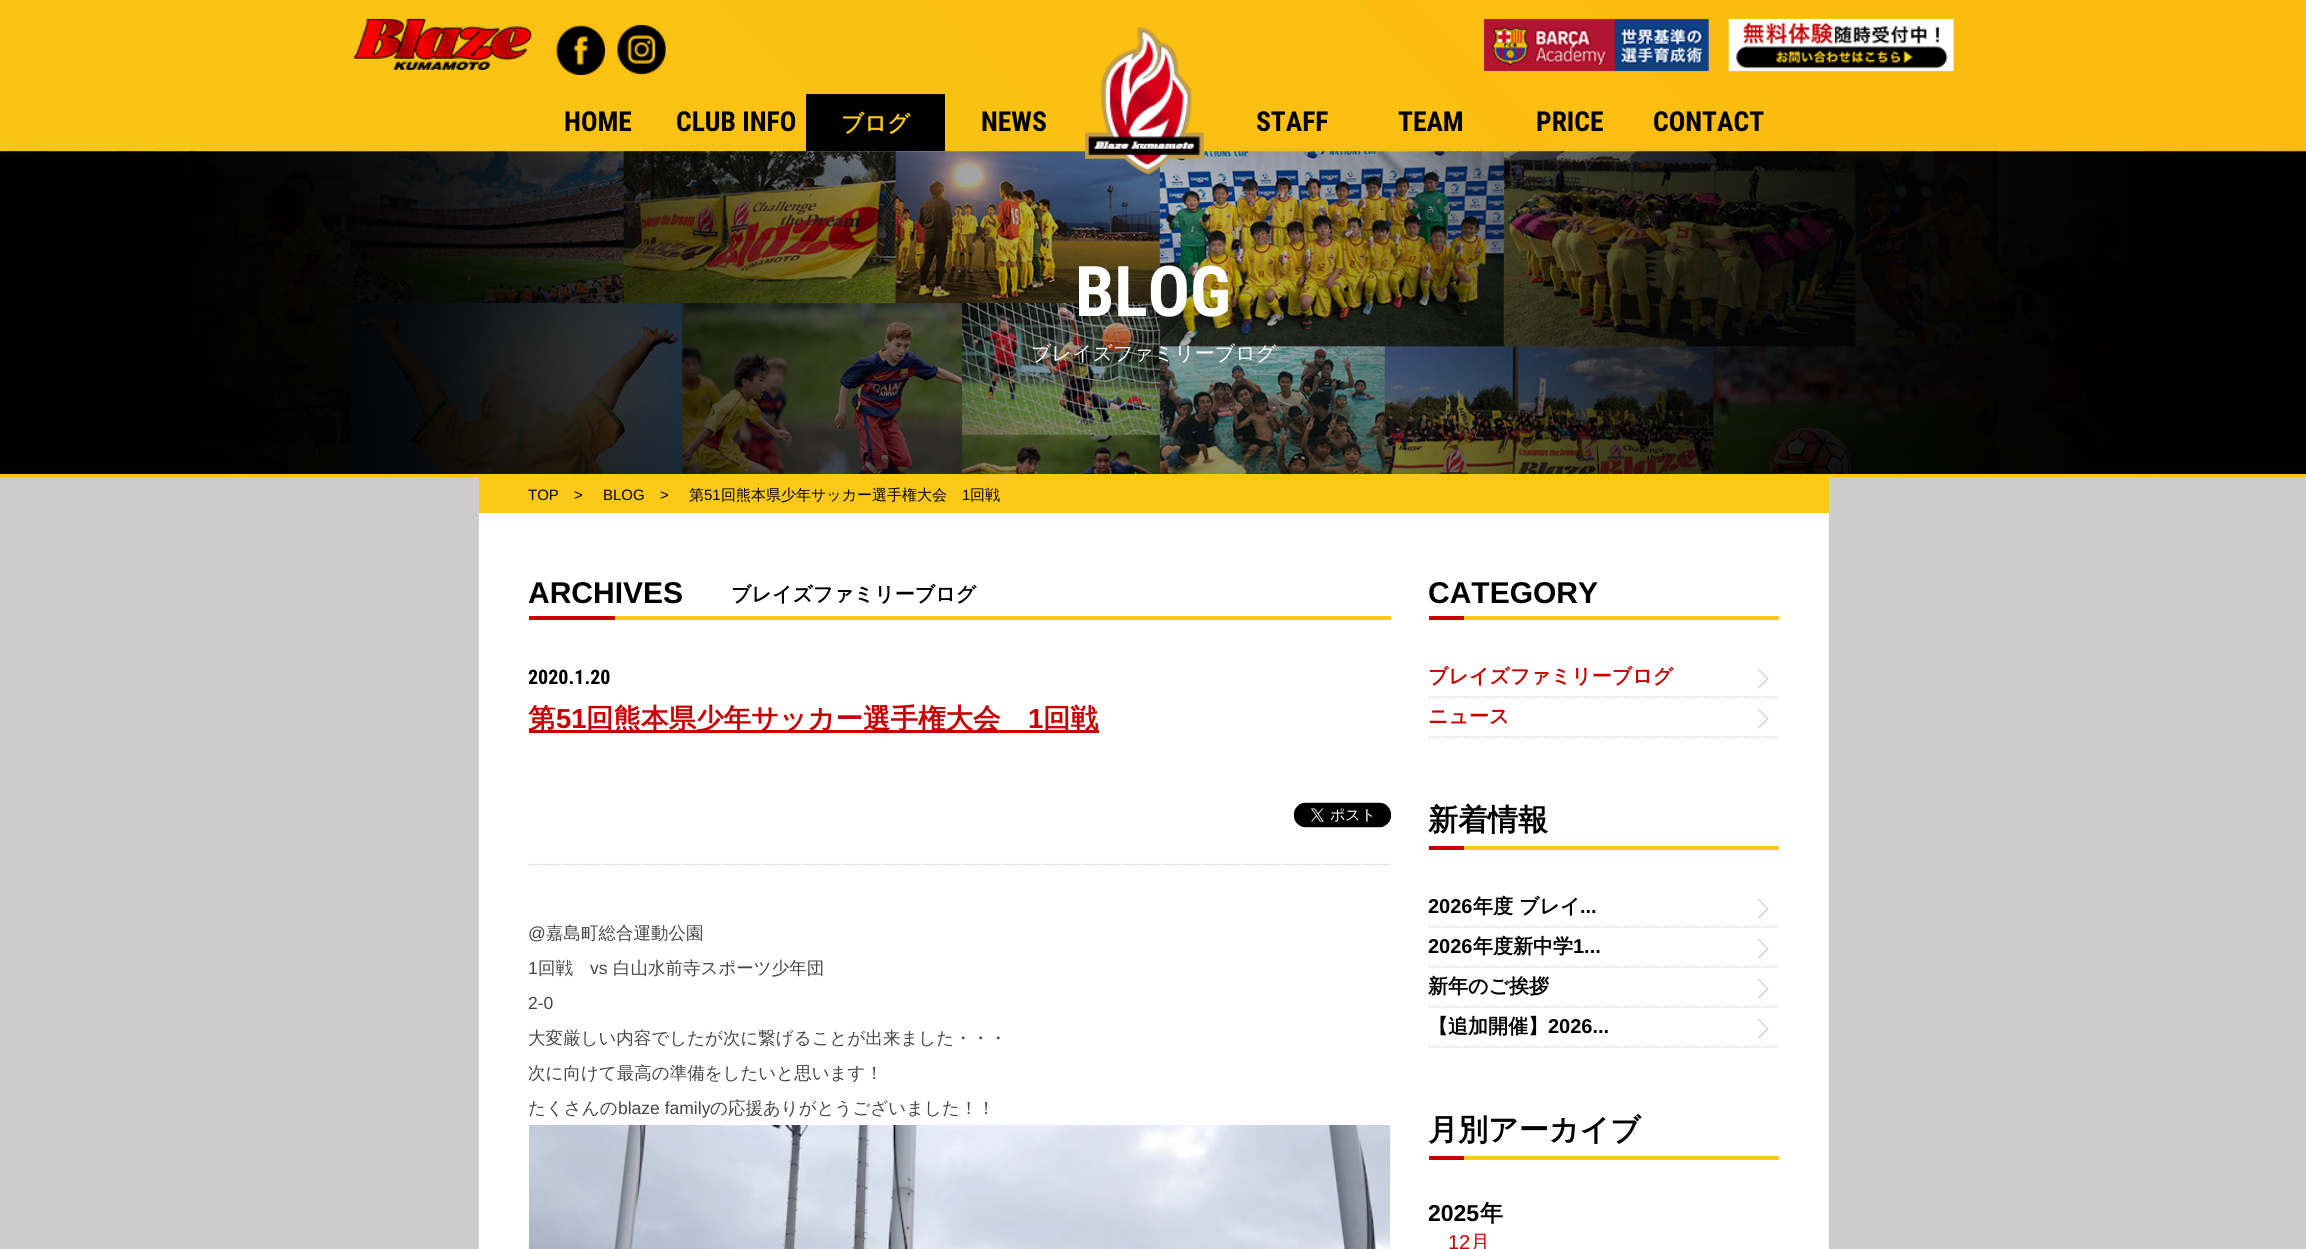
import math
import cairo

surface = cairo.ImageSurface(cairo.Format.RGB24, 2306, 1249)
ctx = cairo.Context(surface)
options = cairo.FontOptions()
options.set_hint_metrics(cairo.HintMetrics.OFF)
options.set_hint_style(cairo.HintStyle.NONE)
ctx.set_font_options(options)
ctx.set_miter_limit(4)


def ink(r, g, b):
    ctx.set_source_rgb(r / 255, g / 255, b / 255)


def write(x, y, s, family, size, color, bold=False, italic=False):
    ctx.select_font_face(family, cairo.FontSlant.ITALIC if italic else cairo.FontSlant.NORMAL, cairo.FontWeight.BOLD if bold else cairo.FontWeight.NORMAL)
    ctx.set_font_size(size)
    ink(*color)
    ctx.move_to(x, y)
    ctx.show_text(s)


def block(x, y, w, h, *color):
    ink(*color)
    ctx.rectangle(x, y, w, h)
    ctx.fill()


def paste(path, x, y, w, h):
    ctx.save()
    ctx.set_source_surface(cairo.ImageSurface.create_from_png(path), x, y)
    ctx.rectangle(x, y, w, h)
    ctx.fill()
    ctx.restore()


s1 = dict(family="Roboto Condensed", size=27.5, color=(0, 0, 0), bold=True)
s2 = dict(family="WenQuanYi Zen Hei", size=22.5, color=(250, 201, 23), bold=True)
s3 = dict(family="Roboto Condensed", size=70, color=(255, 255, 255), bold=True)
s4 = dict(family="WenQuanYi Zen Hei Medium", size=20, color=(255, 255, 255))
s5 = dict(family="Liberation Sans", size=15, color=(0, 0, 0))
s6 = dict(family="WenQuanYi Zen Hei Medium", size=15, color=(0, 0, 0))
s7 = dict(family="Liberation Sans", size=30, color=(0, 0, 0), bold=True)
s8 = dict(family="WenQuanYi Zen Hei", size=20, color=(0, 0, 0), bold=True)
s9 = dict(family="Roboto Condensed", size=20, color=(0, 0, 0), bold=True)
s10 = dict(family="WenQuanYi Zen Hei", size=27.5, color=(201, 0, 2), bold=True)
s11 = dict(family="Liberation Sans", size=27.5, color=(201, 0, 2), bold=True)
s12 = dict(family="Liberation Sans", size=17.5, color=(69, 69, 69))
s13 = dict(family="WenQuanYi Zen Hei Medium", size=17.5, color=(69, 69, 69))
s14 = dict(family="WenQuanYi Zen Hei", size=20, color=(201, 0, 2), bold=True)
s15 = dict(family="WenQuanYi Zen Hei", size=30, color=(0, 0, 0), bold=True)
s16 = dict(family="Liberation Sans", size=20, color=(0, 0, 0), bold=True)
s17 = dict(family="Liberation Sans", size=23, color=(0, 0, 0), bold=True)
s18 = dict(family="WenQuanYi Zen Hei", size=23, color=(0, 0, 0), bold=True)
s19 = dict(family="Liberation Sans", size=20, color=(201, 0, 2))
s20 = dict(family="WenQuanYi Zen Hei Medium", size=20, color=(201, 0, 2))

ink(255, 255, 255)
ctx.paint()
gradient = cairo.LinearGradient(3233, 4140, 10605, -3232)
gradient.add_color_stop_rgba(0, 0.98, 0.788, 0.09, 1)
gradient.add_color_stop_rgba(0.5, 1, 0.655, 0, 1)
gradient.add_color_stop_rgba(1, 0.976, 0.875, 0.176, 1)
ctx.set_source(gradient)
ctx.rectangle(0, 0, 2306, 151)
ctx.fill()
paste("pic1.png", 353, 18, 179, 52)
paste("pic2.png", 556, 25, 49, 50)
paste("pic3.png", 617, 25, 49, 50)
paste("pic4.png", 1483, 18, 226, 54)
paste("pic5.png", 1728, 18, 226, 54)
write(564, 131, "HOME", **s1)
write(676, 131, "CLUB INFO", **s1)
block(806, 94, 139, 57, 0, 0, 0)
write(841, 131, "ブログ", **s2)
write(981, 131, "NEWS", **s1)
block(0, 151, 2306, 1098, 204, 204, 204)
paste("pic7.png", 0, 151, 2306, 323)
paste("pic6.png", 1084, 27, 120, 148)
write(1256, 131, "STAFF", **s1)
write(1398, 131, "TEAM", **s1)
write(1536, 131, "PRICE", **s1)
write(1653, 131, "CONTACT", **s1)
block(0, 474, 2306, 3, 250, 201, 23)
write(1075, 316, "BLOG", **s3)
write(1031, 360, "ブレイズファミリーブログ", **s4)
block(479, 513, 1350, 736, 255, 255, 255)
block(479, 477, 1350, 36, 250, 201, 23)
write(528, 500, "TOP", **s5)
write(574, 500, ">", **s5)
write(603, 500, "BLOG", **s5)
write(660, 500, ">", **s5)
write(689, 500, "第", **s6)
write(704, 500, "51", **s5)
write(721, 500, "回熊本県少年サッカー選手権大会", **s6)
write(962, 500, "1", **s5)
write(970, 500, "回戦", **s6)
block(615, 616, 776, 4, 250, 201, 23)
write(528, 603, "ARCHIVES", **s7)
write(731, 601, "ブレイズファミリーブログ", **s8)
block(529, 616, 86, 4, 201, 0, 2)
write(528, 684, "2020.1.20", **s9)
block(529, 730, 570, 3, 201, 0, 2)
write(528, 728, "第", **s10)
write(556, 728, "51", **s11)
write(586, 728, "回熊本県少年サッカー選手権大会", **s10)
write(1028, 728, "1", **s11)
write(1043, 728, "回戦", **s10)
ctx.new_path()
ctx.move_to(529, 864.5)
ctx.line_to(1391, 864.5)
ink(204, 204, 204)
ctx.set_line_width(1.2)
ctx.set_dash([1.25, 1.25])
ctx.stroke()
paste("pic8.png", 1293, 802, 99, 26)
write(528, 939, "@", **s12)
write(546, 939, "嘉島町総合運動公園", **s13)
write(528, 974, "1", **s12)
write(538, 974, "回戦", **s13)
write(590, 974, "vs", **s12)
write(613, 974, "白山水前寺スポーツ少年団", **s13)
write(528, 1009, "2-0", **s12)
write(528, 1044, "大変厳しい内容でしたが次に繋げることが出来ました・・・", **s13)
write(528, 1079, "次に向けて最高の準備をしたいと思います！", **s13)
write(528, 1114, "たくさんの", **s13)
write(618, 1114, "blaze family", **s12)
write(710, 1114, "の応援ありがとうございました！！", **s13)
paste("pic9.png", 528, 1125, 862, 124)
block(1464, 616, 315, 4, 250, 201, 23)
write(1428, 603, "CATEGORY", **s7)
block(1429, 616, 35, 4, 201, 0, 2)
ctx.new_path()
ctx.move_to(1429, 697)
ctx.line_to(1779, 697)
ink(204, 204, 204)
ctx.stroke()
write(1428, 683, "ブレイズファミリーブログ", **s14)
ink(209, 209, 209)
ctx.new_path()
ctx.move_to(1759, 669)
ctx.line_to(1768.5, 679)
ctx.line_to(1767.5, 679.5)
ctx.line_to(1758, 670)
ctx.close_path()
ctx.fill()
ctx.new_path()
ctx.move_to(1767.5, 678)
ctx.line_to(1768.5, 679)
ctx.line_to(1759, 688.5)
ctx.line_to(1758, 687.5)
ctx.close_path()
ctx.fill()
ctx.new_path()
ctx.move_to(1429, 737)
ctx.line_to(1779, 737)
ink(204, 204, 204)
ctx.stroke()
write(1428, 723, "ニュース", **s14)
ink(209, 209, 209)
ctx.new_path()
ctx.move_to(1759, 709)
ctx.line_to(1768.5, 719)
ctx.line_to(1767.5, 719.5)
ctx.line_to(1758, 710)
ctx.close_path()
ctx.fill()
ctx.new_path()
ctx.move_to(1767.5, 718)
ctx.line_to(1768.5, 719)
ctx.line_to(1759, 728.5)
ctx.line_to(1758, 727.5)
ctx.close_path()
ctx.fill()
block(1464, 846, 315, 4, 250, 201, 23)
write(1428, 830, "新着情報", **s15)
block(1429, 846, 35, 4, 201, 0, 2)
ctx.new_path()
ctx.move_to(1429, 927)
ctx.line_to(1779, 927)
ink(204, 204, 204)
ctx.stroke()
write(1428, 913, "2026", **s16)
write(1473, 913, "年度 ブレイ", **s8)
write(1580, 913, "...", **s16)
ink(209, 209, 209)
ctx.new_path()
ctx.move_to(1759, 899)
ctx.line_to(1768.5, 909)
ctx.line_to(1767.5, 909.5)
ctx.line_to(1758, 900)
ctx.close_path()
ctx.fill()
ctx.new_path()
ctx.move_to(1767.5, 908)
ctx.line_to(1768.5, 909)
ctx.line_to(1759, 918.5)
ctx.line_to(1758, 917.5)
ctx.close_path()
ctx.fill()
ctx.new_path()
ctx.move_to(1429, 967)
ctx.line_to(1779, 967)
ink(204, 204, 204)
ctx.stroke()
write(1428, 953, "2026", **s16)
write(1473, 953, "年度新中学", **s8)
write(1573, 953, "1...", **s16)
ink(209, 209, 209)
ctx.new_path()
ctx.move_to(1759, 939)
ctx.line_to(1768.5, 949)
ctx.line_to(1767.5, 949.5)
ctx.line_to(1758, 940)
ctx.close_path()
ctx.fill()
ctx.new_path()
ctx.move_to(1767.5, 948)
ctx.line_to(1768.5, 949)
ctx.line_to(1759, 958.5)
ctx.line_to(1758, 957.5)
ctx.close_path()
ctx.fill()
ctx.new_path()
ctx.move_to(1429, 1007)
ctx.line_to(1779, 1007)
ink(204, 204, 204)
ctx.stroke()
write(1428, 993, "新年のご挨拶", **s8)
ink(209, 209, 209)
ctx.new_path()
ctx.move_to(1759, 979)
ctx.line_to(1768.5, 989)
ctx.line_to(1767.5, 989.5)
ctx.line_to(1758, 980)
ctx.close_path()
ctx.fill()
ctx.new_path()
ctx.move_to(1767.5, 988)
ctx.line_to(1768.5, 989)
ctx.line_to(1759, 998.5)
ctx.line_to(1758, 997.5)
ctx.close_path()
ctx.fill()
ctx.new_path()
ctx.move_to(1429, 1047)
ctx.line_to(1779, 1047)
ink(204, 204, 204)
ctx.stroke()
write(1428, 1033, "【追加開催】", **s8)
write(1548, 1033, "2026...", **s16)
ink(209, 209, 209)
ctx.new_path()
ctx.move_to(1759, 1019)
ctx.line_to(1768.5, 1029)
ctx.line_to(1767.5, 1029.5)
ctx.line_to(1758, 1020)
ctx.close_path()
ctx.fill()
ctx.new_path()
ctx.move_to(1767.5, 1028)
ctx.line_to(1768.5, 1029)
ctx.line_to(1759, 1038.5)
ctx.line_to(1758, 1037.5)
ctx.close_path()
ctx.fill()
block(1464, 1156, 315, 4, 250, 201, 23)
write(1428, 1140, "月別アーカイブ", **s15)
block(1429, 1156, 35, 4, 201, 0, 2)
write(1428, 1221, "2025", **s17)
write(1480, 1221, "年", **s18)
write(1448, 1249, "12", **s19)
write(1470, 1249, "月", **s20)
surface.write_to_png("screenshot.png")
